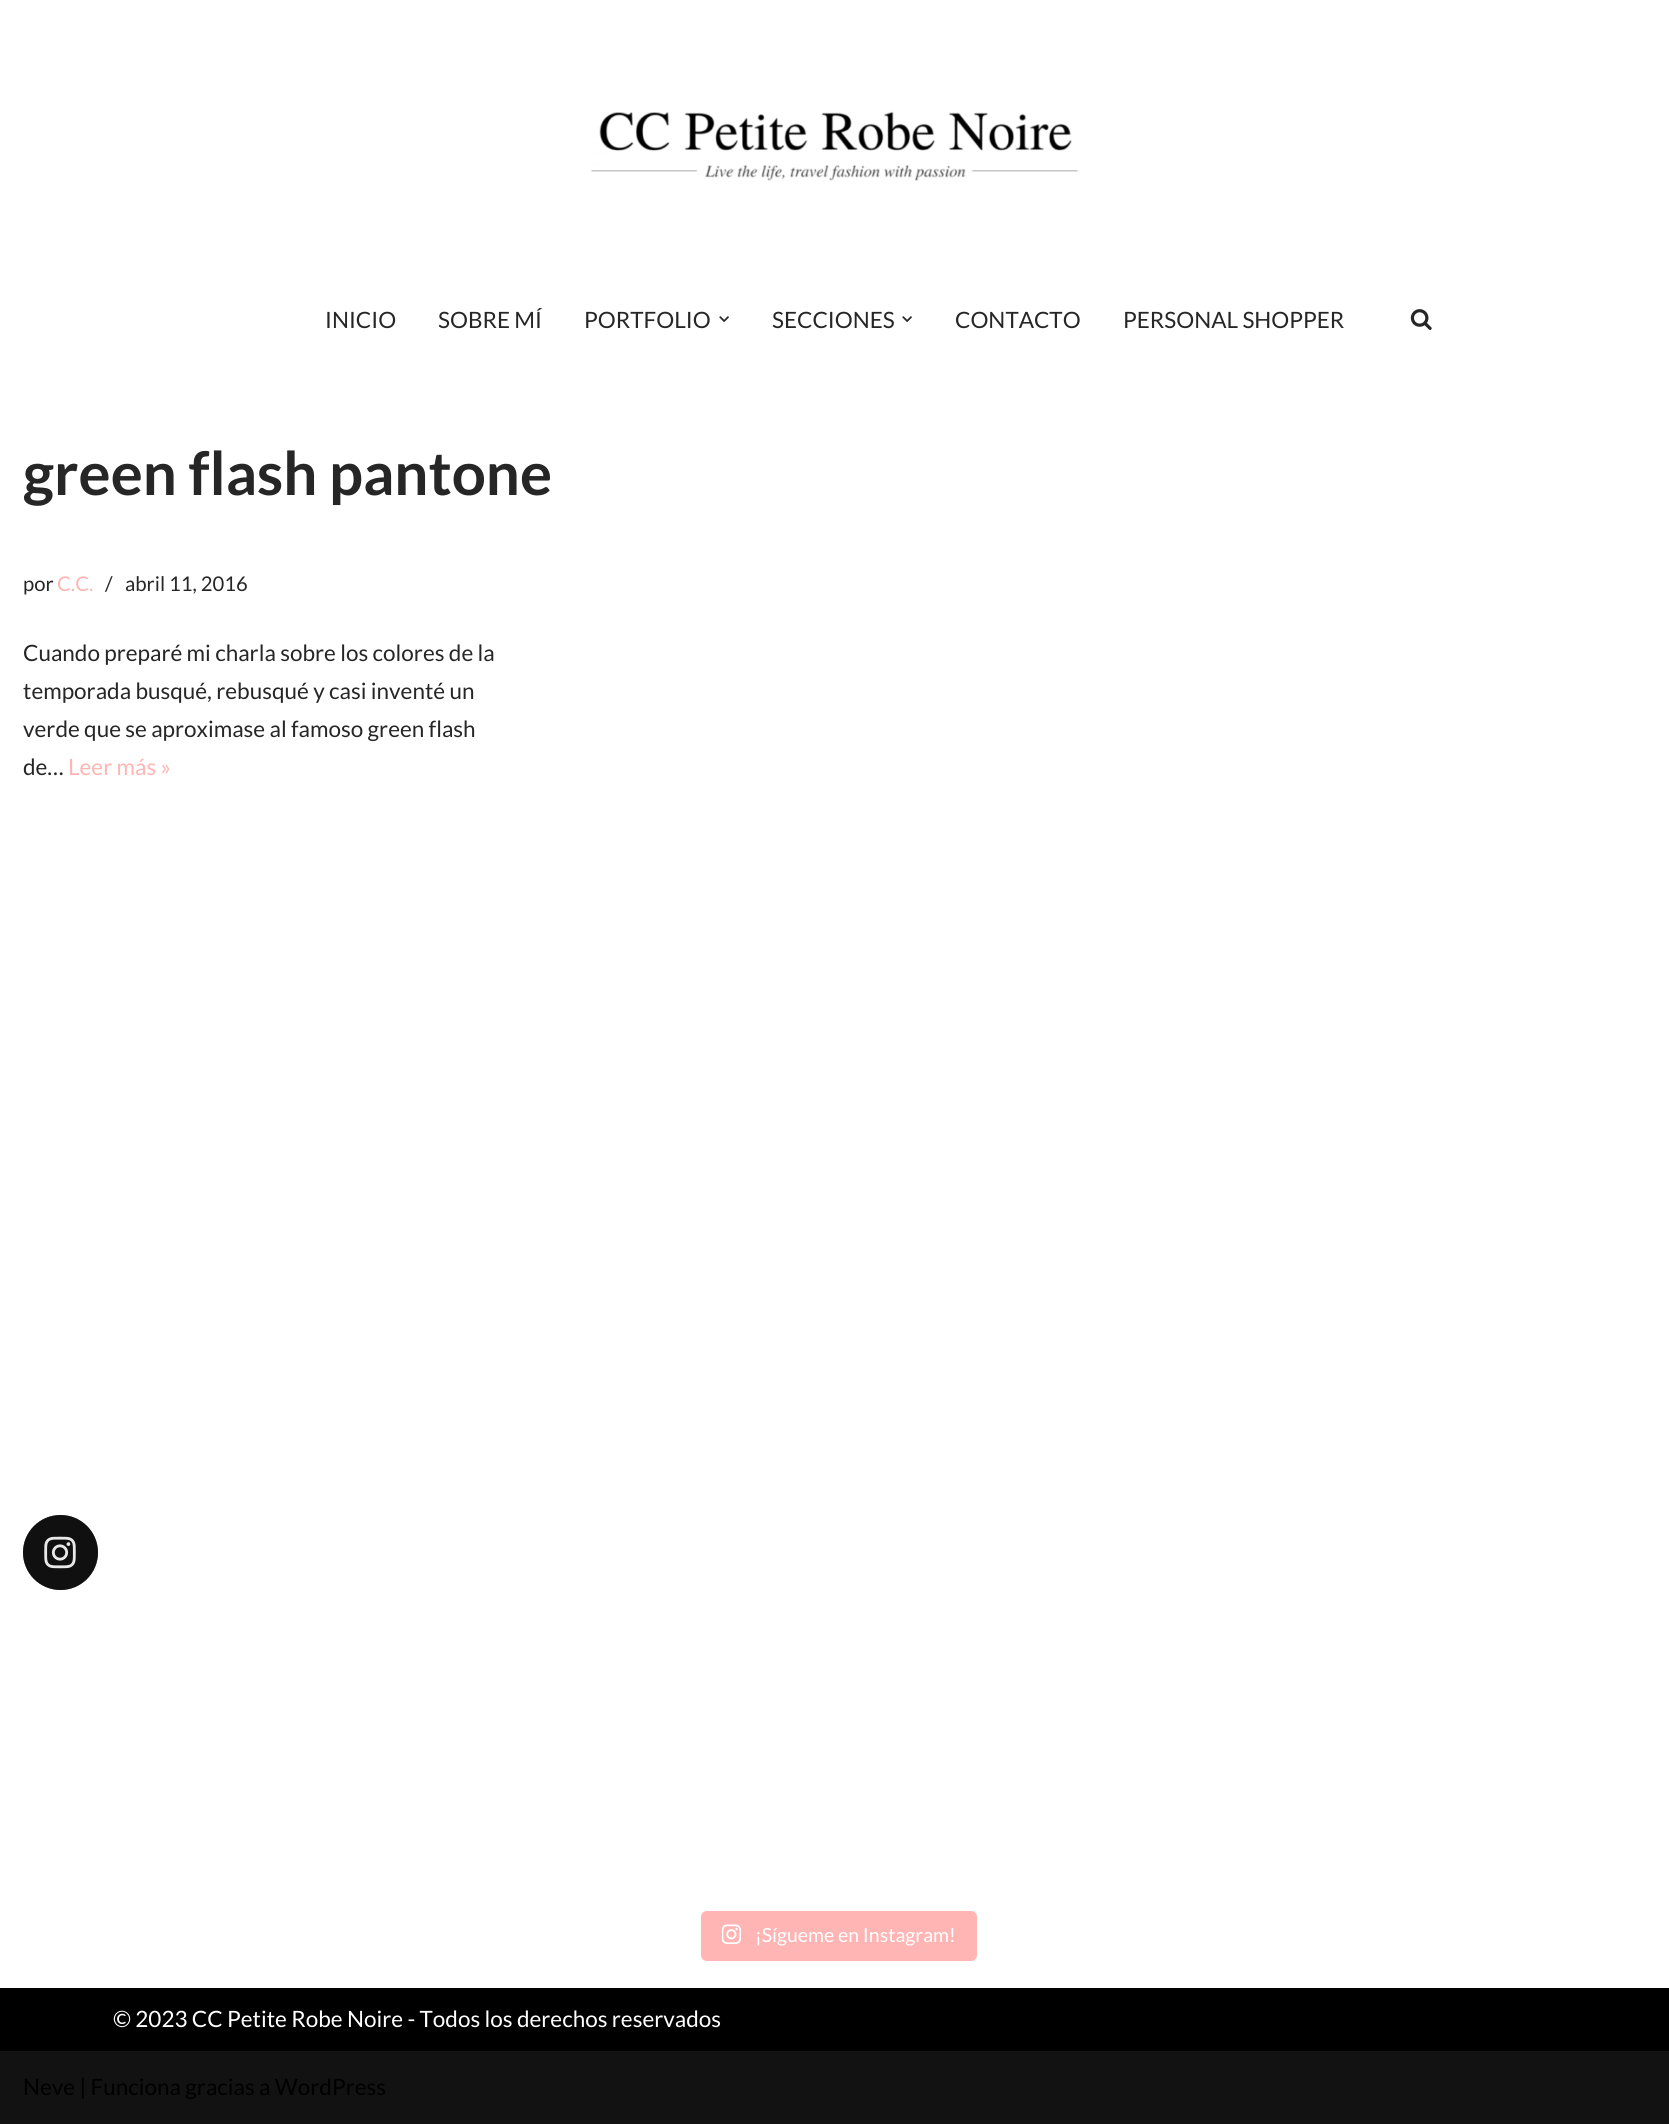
import math
import cairo

surface = cairo.ImageSurface(cairo.Format.RGB24, 1669, 2124)
ctx = cairo.Context(surface)
options = cairo.FontOptions()
options.set_hint_metrics(cairo.HintMetrics.OFF)
options.set_hint_style(cairo.HintStyle.NONE)
ctx.set_font_options(options)
ctx.set_miter_limit(4)


def ink(r, g, b):
    ctx.set_source_rgb(r / 255, g / 255, b / 255)


def write(x, y, s, family, size, color, bold=False, italic=False):
    ctx.select_font_face(family, cairo.FontSlant.ITALIC if italic else cairo.FontSlant.NORMAL, cairo.FontWeight.BOLD if bold else cairo.FontWeight.NORMAL)
    ctx.set_font_size(size)
    ink(*color)
    ctx.move_to(x, y)
    ctx.show_text(s)


def block(x, y, w, h, *color):
    ink(*color)
    ctx.rectangle(x, y, w, h)
    ctx.fill()


def round_path(x, y, w, h, r):
    ctx.new_sub_path()
    for i, (u, v) in enumerate([(x + w - r, y + h - r), (x + r, y + h - r), (x + r, y + r), (x + w - r, y + r)]):
        ctx.arc(u, v, r, i * math.pi / 2, (i + 1) * math.pi / 2)
    ctx.close_path()


def paste(path, x, y, w, h):
    ctx.save()
    ctx.set_source_surface(cairo.ImageSurface.create_from_png(path), x, y)
    ctx.rectangle(x, y, w, h)
    ctx.fill()
    ctx.restore()


s1 = dict(family="Lato", size=22.5, color=(39, 38, 38))
s2 = dict(family="Lato", size=60, color=(39, 38, 38), bold=True)
s3 = dict(family="Lato", size=20.25, color=(39, 38, 38))
s4 = dict(family="Lato", size=20.25, color=(255, 181, 180))
s5 = dict(family="Lato", size=22.5, color=(255, 181, 180))
s6 = dict(family="Lato", size=19.5, color=(255, 255, 255))
s7 = dict(family="Lato", size=22.5, color=(255, 255, 255))
s8 = dict(family="Lato", size=22.5, color=(0, 0, 0))

ink(255, 255, 255)
ctx.paint()
paste("pic1.png", 591, 111, 487, 70)
write(325, 328, "INICIO", **s1)
write(438, 328, "SOBRE MÍ", **s1)
write(584, 328, "PORTFOLIO", **s1)
paste("pic2.png", 719, 316, 10, 6)
write(772, 328, "SECCIONES", **s1)
paste("pic2.png", 902, 316, 10, 6)
write(955, 328, "CONTACTO", **s1)
write(1123, 328, "PERSONAL SHOPPER", **s1)
paste("pic3.png", 1410, 309, 22, 21)
write(23, 495, "green flash pantone", **s2)
write(23, 591, "por", **s3)
write(57, 591, "C.C.", **s4)
write(105, 591, "/", **s3)
write(125, 591, "abril 11, 2016", **s3)
write(23, 661, "Cuando preparé mi charla sobre los colores de la", **s1)
write(23, 699, "temporada busqué, rebusqué y casi inventé un", **s1)
write(23, 737, "verde que se aproximase al famoso green flash", **s1)
write(23, 775, "de…", **s1)
write(68, 775, "Leer más »", **s5)
ink(51, 51, 51)
ctx.new_path()
ctx.arc(60.5, 1552.5, 37.5, 0, 2 * math.pi)
ctx.fill()
ctx.set_source_rgba(0, 0, 0, 0.68)
ctx.arc(60.5, 1552.5, 37.5, 0, 2 * math.pi)
ctx.fill()
paste("pic4.png", 44, 1536, 32, 33)
ink(255, 181, 180)
round_path(701, 1911, 276, 50, 6)
ctx.fill()
paste("pic5.png", 722, 1924, 19, 20)
write(755, 1942, "¡Sígueme en Instagram!", **s6)
block(0, 1988, 1669, 63, 0, 0, 0)
write(113, 2027, "© 2023 CC Petite Robe Noire - Todos los derechos reservados", **s7)
block(0, 2051, 1669, 73, 18, 18, 18)
write(23, 2095, "Neve | Funciona gracias a WordPress", **s8)
surface.write_to_png("screenshot.png")
